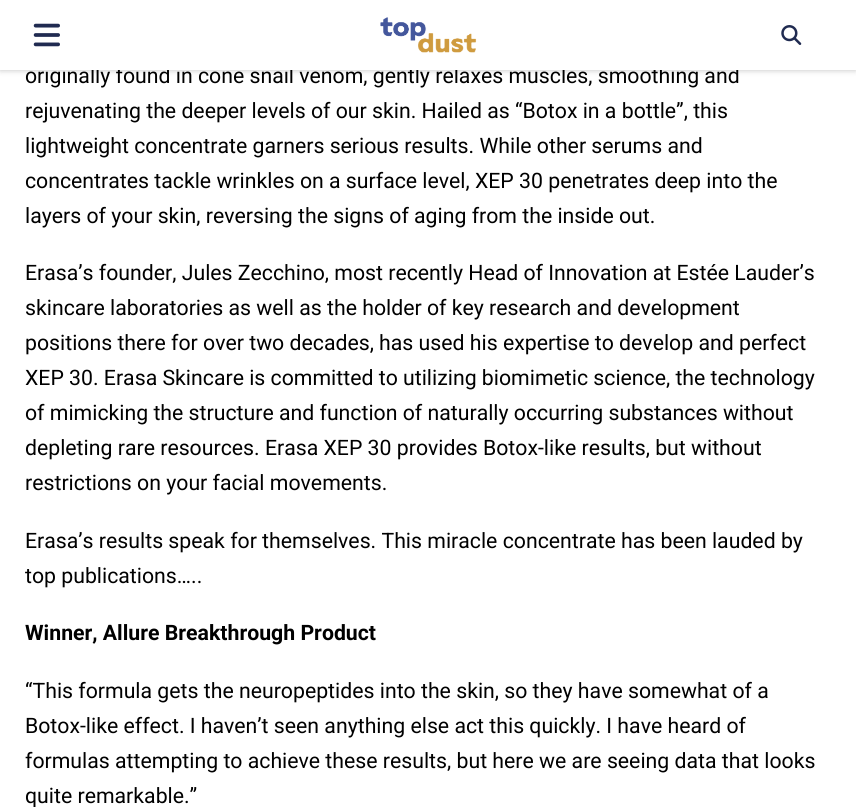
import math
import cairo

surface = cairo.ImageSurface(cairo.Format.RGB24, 856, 807)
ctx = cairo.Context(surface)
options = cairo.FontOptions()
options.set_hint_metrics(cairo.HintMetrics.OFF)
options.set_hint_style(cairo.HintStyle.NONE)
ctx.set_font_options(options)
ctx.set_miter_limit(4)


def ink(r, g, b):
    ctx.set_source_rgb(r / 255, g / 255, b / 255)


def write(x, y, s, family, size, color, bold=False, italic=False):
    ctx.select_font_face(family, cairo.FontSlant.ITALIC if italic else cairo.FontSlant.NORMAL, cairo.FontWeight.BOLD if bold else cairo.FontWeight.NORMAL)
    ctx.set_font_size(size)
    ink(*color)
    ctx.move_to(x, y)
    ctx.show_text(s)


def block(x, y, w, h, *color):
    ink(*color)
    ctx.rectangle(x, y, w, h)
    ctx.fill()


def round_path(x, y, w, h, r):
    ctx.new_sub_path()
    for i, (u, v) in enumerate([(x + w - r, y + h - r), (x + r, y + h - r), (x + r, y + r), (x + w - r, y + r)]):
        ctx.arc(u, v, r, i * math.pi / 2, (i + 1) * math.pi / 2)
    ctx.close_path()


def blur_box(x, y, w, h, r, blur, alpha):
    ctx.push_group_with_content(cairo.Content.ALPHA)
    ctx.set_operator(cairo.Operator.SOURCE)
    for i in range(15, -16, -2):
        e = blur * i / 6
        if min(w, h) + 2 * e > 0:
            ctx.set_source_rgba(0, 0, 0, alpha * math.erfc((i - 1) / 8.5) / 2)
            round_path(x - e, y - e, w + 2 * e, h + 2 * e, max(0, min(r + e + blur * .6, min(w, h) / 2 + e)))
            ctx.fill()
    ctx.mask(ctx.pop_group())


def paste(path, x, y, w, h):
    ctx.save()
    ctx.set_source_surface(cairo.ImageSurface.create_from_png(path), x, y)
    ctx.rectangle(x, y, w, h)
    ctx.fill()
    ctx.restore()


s1 = dict(family="Roboto", size=21.25, color=(0, 0, 0))
s2 = dict(family="Roboto", size=21.25, color=(0, 0, 0), bold=True)

ink(255, 255, 255)
ctx.paint()
ink(0, 0, 0)
blur_box(0, 0, 856, 70, 0, 3, 0.25)
write(25, 83, "originally found in cone snail venom, gently relaxes muscles, smoothing and", **s1)
block(0, 0, 856, 70, 255, 255, 255)
paste("pic1.png", 33, 23, 27, 24)
paste("pic2.png", 380, 17, 97, 36)
paste("pic3.png", 781, 25, 21, 20)
write(25, 118, "rejuvenating the deeper levels of our skin. Hailed as “Botox in a bottle”, this", **s1)
write(25, 153, "lightweight concentrate garners serious results. While other serums and", **s1)
write(25, 188, "concentrates tackle wrinkles on a surface level, XEP 30 penetrates deep into the", **s1)
write(25, 223, "layers of your skin, reversing the signs of aging from the inside out.", **s1)
write(25, 280, "Erasa’s founder, Jules Zecchino, most recently Head of Innovation at Estée Lauder’s", **s1)
write(25, 315, "skincare laboratories as well as the holder of key research and development", **s1)
write(25, 350, "positions there for over two decades, has used his expertise to develop and perfect", **s1)
write(25, 385, "XEP 30. Erasa Skincare is committed to utilizing biomimetic science, the technology", **s1)
write(25, 420, "of mimicking the structure and function of naturally occurring substances without", **s1)
write(25, 455, "depleting rare resources. Erasa XEP 30 provides Botox-like results, but without", **s1)
write(25, 490, "restrictions on your facial movements.", **s1)
write(25, 548, "Erasa’s results speak for themselves. This miracle concentrate has been lauded by", **s1)
write(25, 583, "top publications…..", **s1)
write(25, 640, "Winner, Allure Breakthrough Product", **s2)
write(25, 698, "“This formula gets the neuropeptides into the skin, so they have somewhat of a", **s1)
write(25, 733, "Botox-like effect. I haven’t seen anything else act this quickly. I have heard of", **s1)
write(25, 768, "formulas attempting to achieve these results, but here we are seeing data that looks", **s1)
write(25, 803, "quite remarkable.”", **s1)
surface.write_to_png("screenshot.png")
